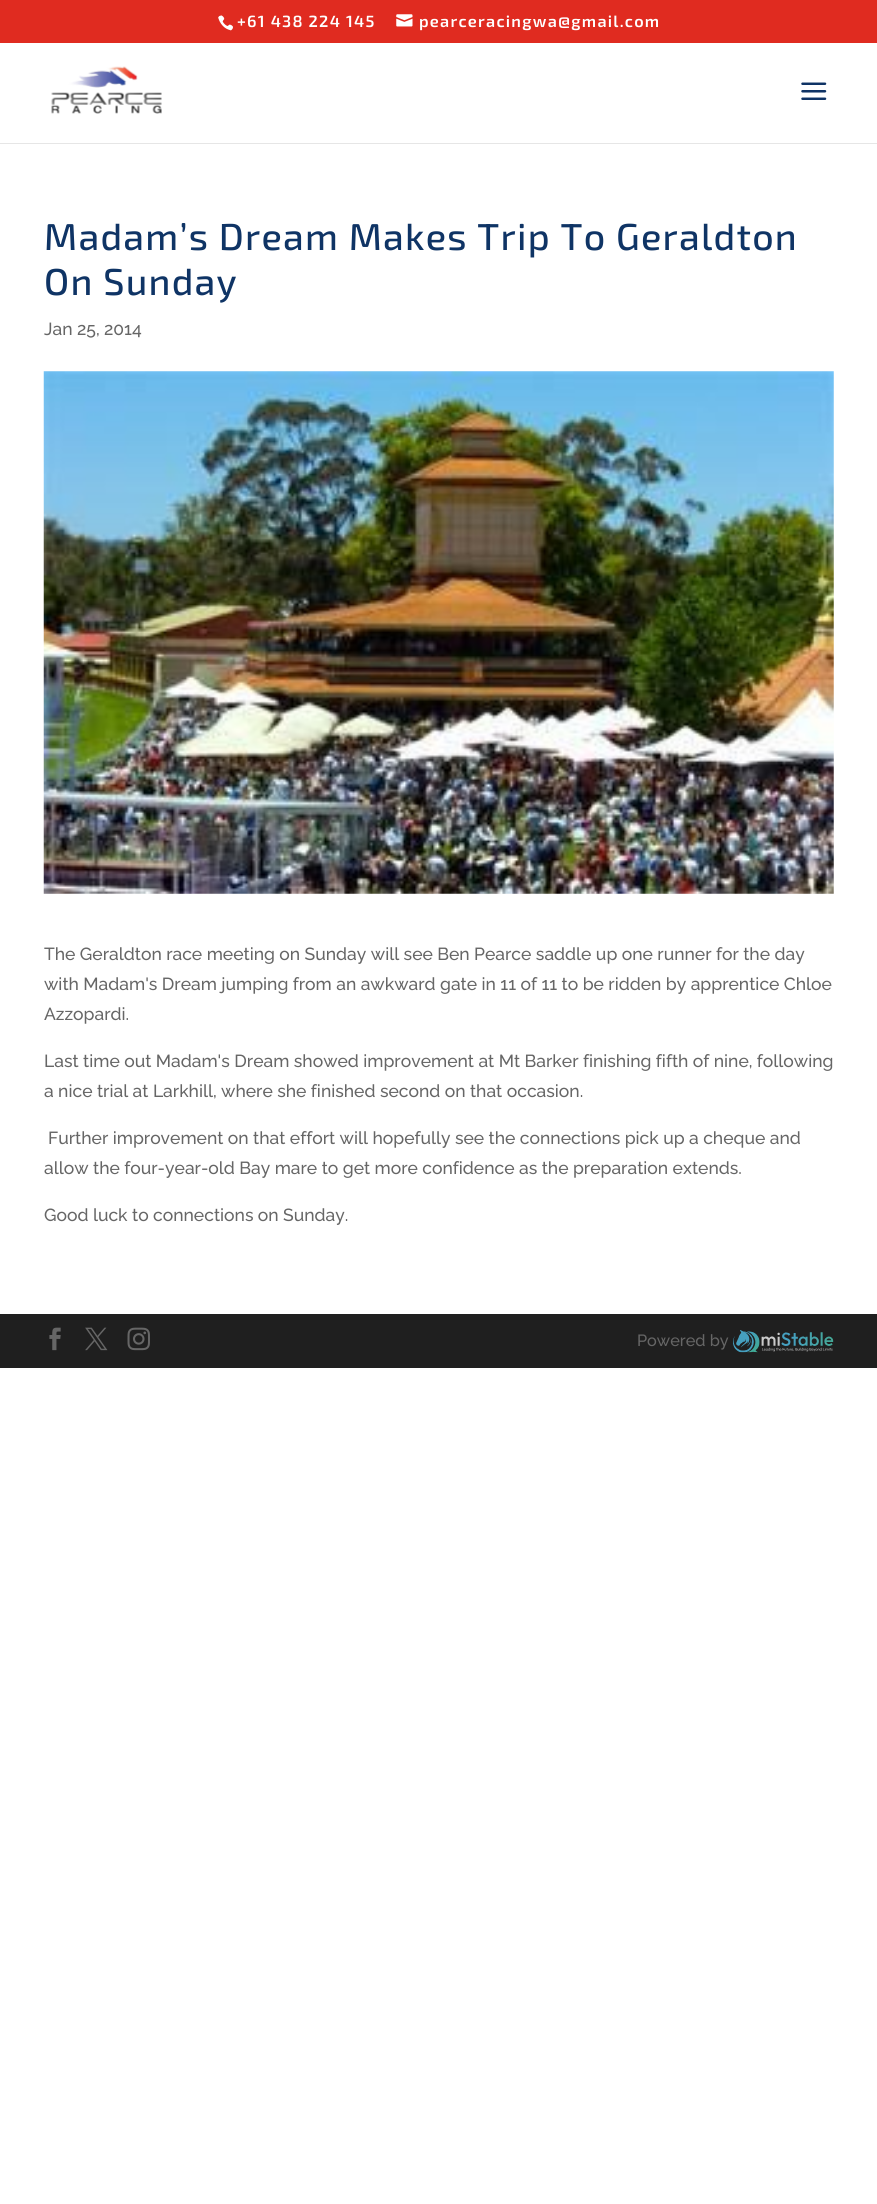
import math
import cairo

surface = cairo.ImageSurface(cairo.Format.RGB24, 877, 2204)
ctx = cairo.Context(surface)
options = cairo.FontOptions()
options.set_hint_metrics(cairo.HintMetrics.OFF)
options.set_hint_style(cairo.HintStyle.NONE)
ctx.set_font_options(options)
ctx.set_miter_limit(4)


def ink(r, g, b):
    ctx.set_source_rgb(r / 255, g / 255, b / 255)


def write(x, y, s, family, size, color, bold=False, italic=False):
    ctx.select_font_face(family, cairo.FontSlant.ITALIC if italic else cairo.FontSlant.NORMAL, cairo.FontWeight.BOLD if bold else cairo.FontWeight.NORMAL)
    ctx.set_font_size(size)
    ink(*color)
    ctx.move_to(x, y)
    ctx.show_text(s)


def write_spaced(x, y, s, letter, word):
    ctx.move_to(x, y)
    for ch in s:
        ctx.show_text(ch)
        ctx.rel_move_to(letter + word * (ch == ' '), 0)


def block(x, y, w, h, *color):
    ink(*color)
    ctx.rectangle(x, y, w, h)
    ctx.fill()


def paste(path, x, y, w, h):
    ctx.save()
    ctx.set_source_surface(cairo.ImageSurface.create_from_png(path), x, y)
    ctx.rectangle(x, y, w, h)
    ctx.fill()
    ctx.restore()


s1 = dict(family="Raleway Medium", size=17.5, color=(102, 102, 102))
s2 = dict(family="Raleway Medium", size=16.25, color=(102, 102, 102))

ink(255, 255, 255)
ctx.paint()
block(0, 0, 877, 43, 224, 43, 32)
paste("pic1.png", 218, 15, 15, 16)
ctx.select_font_face("Exo 2 SemiBold")
ctx.set_font_size(16.25)
ink(255, 255, 255)
write_spaced(237, 27, "+61 438 224 145", 1.25, 0)
paste("pic2.png", 396, 14, 17, 13)
write_spaced(419, 27, "pearceracingwa@gmail.com", 1.25, 0)
ink(230, 230, 230)
ctx.new_path()
ctx.move_to(0, 142)
ctx.line_to(0, 144)
ctx.line_to(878, 144)
ctx.line_to(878, 44)
ctx.line_to(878, 142)
ctx.close_path()
ctx.fill()
block(0, 142, 877, 1, 255, 255, 255)
paste("pic3.png", 51, 66, 111, 48)
paste("pic4.png", 801, 82, 26, 18)
ctx.select_font_face("Exo 2 Medium")
ctx.set_font_size(37.5)
ink(15, 52, 101)
write_spaced(44, 250, "Madam’s Dream Makes Trip To Geraldton", 1.25, 0)
write_spaced(44, 295, "On Sunday", 1.25, 0)
write(44, 335, "Jan 25, 2014", **s1)
paste("pic5.png", 43, 371, 791, 523)
write(44, 960, "The Geraldton race meeting on Sunday will see Ben Pearce saddle up one runner for the day", **s1)
write(44, 990, "with Madam's Dream jumping from an awkward gate in 11 of 11 to be ridden by apprentice Chloe", **s1)
write(44, 1020, "Azzopardi.", **s1)
write(44, 1067, "Last time out Madam's Dream showed improvement at Mt Barker finishing fifth of nine, following", **s1)
write(44, 1097, "a nice trial at Larkhill, where she finished second on that occasion.", **s1)
write(48, 1144, "Further improvement on that effort will hopefully see the connections pick up a cheque and", **s1)
write(44, 1174, "allow the four-year-old Bay mare to get more confidence as the preparation extends.", **s1)
write(44, 1221, "Good luck to connections on Sunday.", **s1)
block(0, 1314, 877, 54, 31, 31, 31)
paste("pic6.png", 49, 1327, 12, 24)
paste("pic7.png", 85, 1327, 23, 24)
paste("pic8.png", 127, 1327, 23, 24)
write(637, 1346, "Powered by", **s2)
paste("pic9.png", 733, 1330, 101, 23)
surface.write_to_png("screenshot.png")
